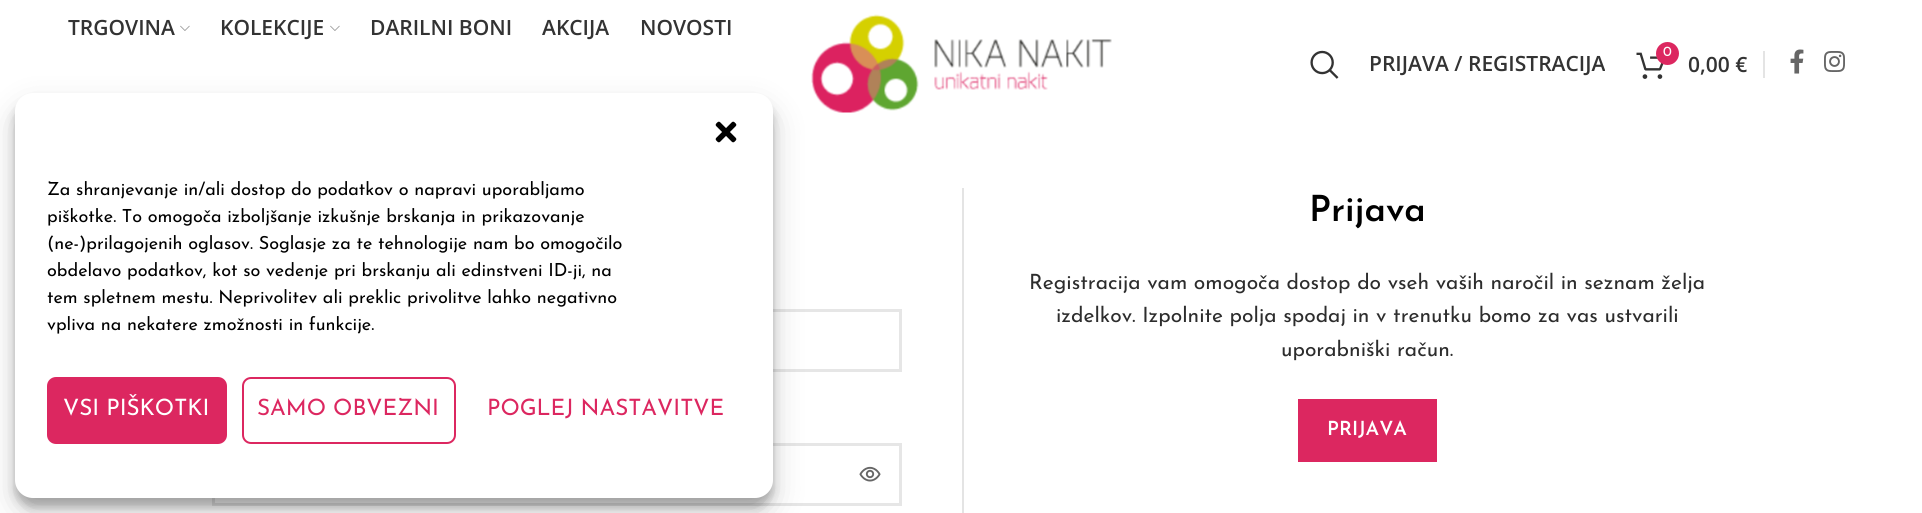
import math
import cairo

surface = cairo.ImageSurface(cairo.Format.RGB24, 1922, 513)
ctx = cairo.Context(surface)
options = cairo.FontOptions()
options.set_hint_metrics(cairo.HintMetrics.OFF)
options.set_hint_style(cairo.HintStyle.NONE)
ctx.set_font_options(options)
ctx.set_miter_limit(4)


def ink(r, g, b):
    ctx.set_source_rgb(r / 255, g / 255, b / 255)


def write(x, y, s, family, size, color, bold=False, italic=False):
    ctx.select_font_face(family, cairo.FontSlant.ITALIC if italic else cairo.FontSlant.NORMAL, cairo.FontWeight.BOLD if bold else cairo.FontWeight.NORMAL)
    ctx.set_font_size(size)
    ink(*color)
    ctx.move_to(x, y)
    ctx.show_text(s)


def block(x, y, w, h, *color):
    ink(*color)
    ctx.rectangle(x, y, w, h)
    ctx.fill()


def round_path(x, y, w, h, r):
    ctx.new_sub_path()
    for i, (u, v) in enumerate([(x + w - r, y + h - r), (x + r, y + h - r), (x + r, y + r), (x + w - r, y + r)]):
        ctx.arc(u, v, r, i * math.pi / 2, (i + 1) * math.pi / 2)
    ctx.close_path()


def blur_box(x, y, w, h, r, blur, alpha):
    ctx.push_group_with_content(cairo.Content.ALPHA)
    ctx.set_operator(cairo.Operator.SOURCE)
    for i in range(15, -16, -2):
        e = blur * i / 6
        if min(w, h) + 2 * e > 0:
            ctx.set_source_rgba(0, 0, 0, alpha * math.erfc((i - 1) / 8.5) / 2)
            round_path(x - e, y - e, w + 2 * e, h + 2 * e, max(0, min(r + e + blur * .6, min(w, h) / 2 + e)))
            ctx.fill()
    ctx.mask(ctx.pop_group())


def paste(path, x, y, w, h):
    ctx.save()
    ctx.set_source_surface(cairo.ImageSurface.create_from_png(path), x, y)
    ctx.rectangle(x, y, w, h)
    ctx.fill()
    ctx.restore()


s1 = dict(family="Open Sans SemiBold", size=21, color=(51, 51, 51))
s2 = dict(family="Josefin Sans", size=14, color=(255, 255, 255))
s3 = dict(family="Josefin Sans SemiBold", size=36, color=(0, 0, 0))
s4 = dict(family="Josefin Sans", size=21, color=(45, 45, 45))
s5 = dict(family="Josefin Sans SemiBold", size=19.5, color=(255, 255, 255))
s6 = dict(family="Josefin Sans", size=18, color=(0, 0, 0))
s7 = dict(family="Josefin Sans", size=22.5, color=(255, 255, 255))
s8 = dict(family="Josefin Sans", size=22.5, color=(220, 39, 96))

ink(255, 255, 255)
ctx.paint()
write(68, 35, "TRGOVINA", **s1)
paste("pic1.png", 180, 25, 10, 6)
write(220, 35, "KOLEKCIJE", **s1)
paste("pic1.png", 330, 25, 10, 6)
write(370, 35, "DARILNI BONI", **s1)
write(542, 35, "AKCIJA", **s1)
write(640, 35, "NOVOSTI", **s1)
paste("pic2.png", 811, 14, 301, 99)
paste("pic3.png", 1310, 50, 29, 29)
write(1369, 71, "PRIJAVA / REGISTRACIJA", **s1)
paste("pic4.png", 1636, 52, 28, 27)
ink(220, 39, 96)
ctx.arc(1667.5, 53.5, 11.5, 0, 2 * math.pi)
ctx.fill()
write(1663, 56, "0", **s2)
write(1688, 72, "0,00 €", **s1)
block(1763, 51, 2, 27, 228, 228, 228)
paste("pic5.png", 1790, 49, 14, 25)
paste("pic6.png", 1824, 51, 21, 21)
ctx.rectangle(213.5, 310.5, 687, 60)
ink(230, 230, 230)
ctx.set_line_width(3)
ctx.stroke()
ctx.rectangle(213.5, 444.5, 687, 60)
ctx.stroke()
paste("pic7.png", 859, 466, 22, 16)
block(962, 188, 2, 325, 228, 228, 228)
write(1309, 221, "Prijava", **s3)
write(1029, 289, "Registracija vam omogoča dostop do vseh vaših naročil in seznam želja", **s4)
write(1056, 322, "izdelkov. Izpolnite polja spodaj in v trenutku bomo za vas ustvarili", **s4)
write(1281, 356, "uporabniški račun.", **s4)
block(1298, 399, 139, 63, 220, 39, 96)
write(1327, 435, "PRIJAVA", **s5)
ink(0, 0, 0)
blur_box(15, 102, 758, 405, 18, 4.5, 0.23)
blur_box(15, 108, 758, 405, 18, 15, 0.19)
ink(255, 255, 255)
round_path(16, 94, 756, 403, 17)
ctx.fill_preserve()
ctx.set_line_width(2)
ctx.stroke()
paste("pic8.png", 715, 121, 22, 22)
write(47, 195, "Za shranjevanje in/ali dostop do podatkov o napravi uporabljamo", **s6)
write(47, 222, "piškotke. To omogoča izboljšanje izkušnje brskanja in prikazovanje", **s6)
write(47, 249, "(ne-)prilagojenih oglasov. Soglasje za te tehnologije nam bo omogočilo", **s6)
write(47, 276, "obdelavo podatkov, kot so vedenje pri brskanju ali edinstveni ID-ji, na", **s6)
write(47, 303, "tem spletnem mestu. Neprivolitev ali preklic privolitve lahko negativno", **s6)
write(47, 330, "vpliva na nekatere zmožnosti in funkcije.", **s6)
ink(220, 39, 96)
round_path(48, 378, 178, 65, 8)
ctx.fill_preserve()
ctx.stroke()
write(63, 415, "VSI PIŠKOTKI", **s7)
round_path(243, 378, 212, 65, 8)
ink(220, 39, 96)
ctx.stroke()
write(257, 415, "SAMO OBVEZNI", **s8)
write(487, 415, "POGLEJ NASTAVITVE", **s8)
surface.write_to_png("screenshot.png")
